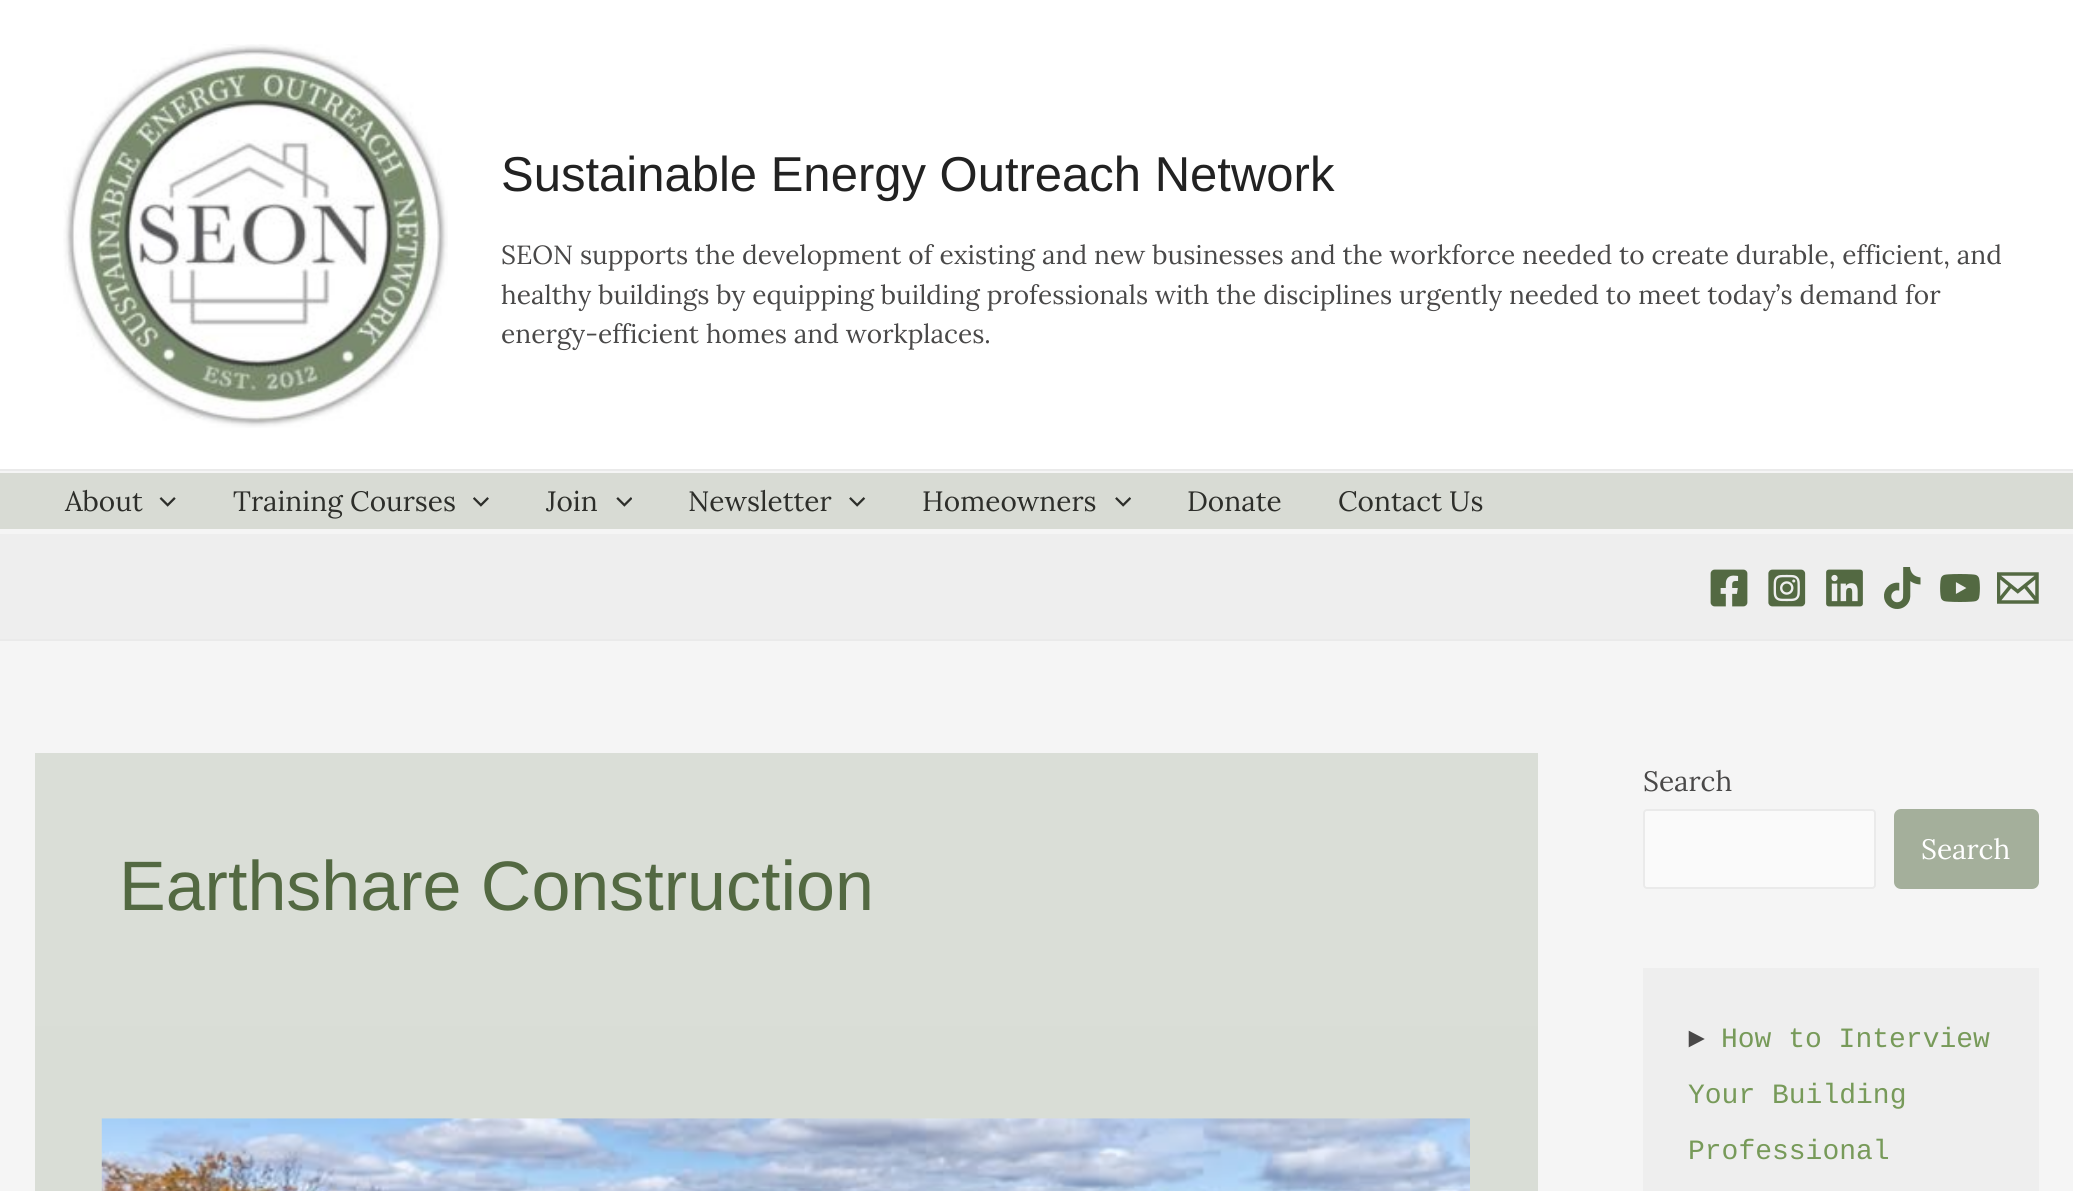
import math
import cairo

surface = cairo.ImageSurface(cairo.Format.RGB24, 2073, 1191)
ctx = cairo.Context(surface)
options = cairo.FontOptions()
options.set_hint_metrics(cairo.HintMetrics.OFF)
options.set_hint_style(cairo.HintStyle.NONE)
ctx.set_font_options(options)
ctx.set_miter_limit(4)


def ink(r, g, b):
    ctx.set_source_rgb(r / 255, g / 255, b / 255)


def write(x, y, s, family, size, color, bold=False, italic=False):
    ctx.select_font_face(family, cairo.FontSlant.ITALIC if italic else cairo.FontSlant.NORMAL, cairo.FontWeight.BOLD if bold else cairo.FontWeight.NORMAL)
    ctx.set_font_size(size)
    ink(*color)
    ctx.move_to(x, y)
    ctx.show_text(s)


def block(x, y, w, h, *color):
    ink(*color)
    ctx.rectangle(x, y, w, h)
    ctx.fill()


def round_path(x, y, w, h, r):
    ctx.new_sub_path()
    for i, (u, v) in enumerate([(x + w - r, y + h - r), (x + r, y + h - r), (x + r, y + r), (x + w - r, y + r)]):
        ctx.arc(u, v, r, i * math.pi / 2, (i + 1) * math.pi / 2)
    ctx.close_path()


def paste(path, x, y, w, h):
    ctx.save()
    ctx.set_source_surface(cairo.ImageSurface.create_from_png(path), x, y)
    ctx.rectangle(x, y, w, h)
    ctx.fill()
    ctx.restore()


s1 = dict(family="Liberation Sans", size=49, color=(34, 34, 34))
s2 = dict(family="Lora", size=26.25, color=(73, 72, 72))
s3 = dict(family="Lora", size=28, color=(45, 46, 42))
s4 = dict(family="Liberation Sans", size=70, color=(83, 105, 66))
s5 = dict(family="Lora", size=28, color=(73, 72, 72))
s6 = dict(family="Lora", size=28, color=(255, 255, 255))
s7 = dict(family="Liberation Mono", size=28, color=(73, 72, 72))
s8 = dict(family="Liberation Mono", size=28, color=(119, 154, 89))

ink(245, 245, 245)
ctx.paint()
block(0, 0, 2073, 469, 255, 255, 255)
block(0, 469, 2073, 2, 234, 234, 234)
paste("pic1.png", 63, 44, 385, 384)
write(501, 191, "Sustainable Energy Outreach Network", **s1)
write(501, 264, "SEON supports the development of existing and new businesses and the workforce needed to create durable, efficient, and", **s2)
write(501, 304, "healthy buildings by equipping building professionals with the disciplines urgently needed to meet today’s demand for", **s2)
write(501, 343, "energy-efficient homes and workplaces.", **s2)
block(0, 473, 2073, 56, 216, 219, 212)
write(65, 511, "About", **s3)
paste("pic2.png", 159, 497, 17, 10)
write(233, 511, "Training Courses", **s3)
paste("pic3.png", 473, 497, 16, 10)
write(546, 511, "Join", **s3)
paste("pic4.png", 616, 497, 16, 10)
write(688, 511, "Newsletter", **s3)
paste("pic5.png", 849, 497, 17, 10)
write(922, 511, "Homeowners", **s3)
paste("pic6.png", 1115, 497, 16, 10)
write(1187, 511, "Donate", **s3)
write(1338, 511, "Contact Us", **s3)
block(0, 534, 2073, 105, 238, 238, 238)
block(0, 639, 2073, 2, 234, 234, 234)
paste("pic7.png", 1710, 569, 38, 38)
paste("pic8.png", 1768, 569, 38, 38)
paste("pic9.png", 1826, 569, 37, 38)
paste("pic10.png", 1884, 567, 37, 42)
paste("pic11.png", 1940, 574, 40, 28)
paste("pic12.png", 1997, 572, 42, 32)
block(35, 753, 1503, 273, 218, 222, 215)
write(119, 910, "Earthshare Construction", **s4)
block(35, 1026, 1503, 165, 217, 221, 214)
paste("pic13.png", 101, 1118, 1369, 73)
write(1643, 791, "Search", **s5)
ink(250, 250, 250)
round_path(1644, 810, 231, 78, 3)
ctx.fill_preserve()
ink(234, 234, 234)
ctx.stroke()
ink(164, 175, 155)
round_path(1894, 809, 145, 80, 7)
ctx.fill()
write(1921, 859, "Search", **s6)
block(1643, 968, 396, 223, 238, 238, 238)
write(1688, 1047, "►", **s7)
write(1721, 1047, "How to Interview", **s8)
write(1688, 1103, "Your Building", **s8)
write(1688, 1159, "Professional", **s8)
surface.write_to_png("screenshot.png")
